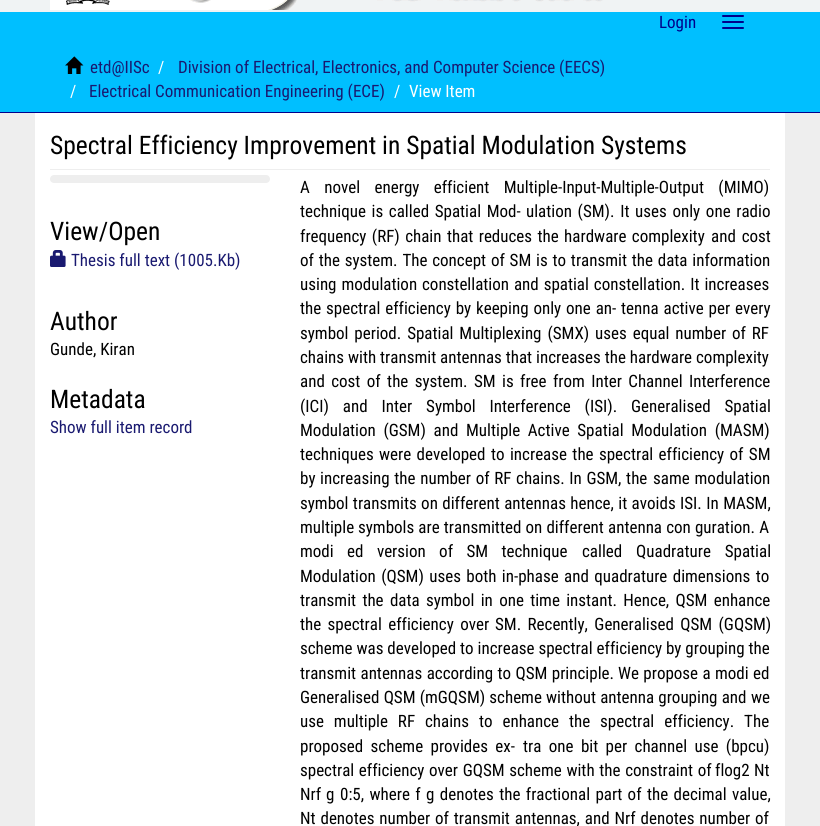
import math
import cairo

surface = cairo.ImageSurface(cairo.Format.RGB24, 820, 826)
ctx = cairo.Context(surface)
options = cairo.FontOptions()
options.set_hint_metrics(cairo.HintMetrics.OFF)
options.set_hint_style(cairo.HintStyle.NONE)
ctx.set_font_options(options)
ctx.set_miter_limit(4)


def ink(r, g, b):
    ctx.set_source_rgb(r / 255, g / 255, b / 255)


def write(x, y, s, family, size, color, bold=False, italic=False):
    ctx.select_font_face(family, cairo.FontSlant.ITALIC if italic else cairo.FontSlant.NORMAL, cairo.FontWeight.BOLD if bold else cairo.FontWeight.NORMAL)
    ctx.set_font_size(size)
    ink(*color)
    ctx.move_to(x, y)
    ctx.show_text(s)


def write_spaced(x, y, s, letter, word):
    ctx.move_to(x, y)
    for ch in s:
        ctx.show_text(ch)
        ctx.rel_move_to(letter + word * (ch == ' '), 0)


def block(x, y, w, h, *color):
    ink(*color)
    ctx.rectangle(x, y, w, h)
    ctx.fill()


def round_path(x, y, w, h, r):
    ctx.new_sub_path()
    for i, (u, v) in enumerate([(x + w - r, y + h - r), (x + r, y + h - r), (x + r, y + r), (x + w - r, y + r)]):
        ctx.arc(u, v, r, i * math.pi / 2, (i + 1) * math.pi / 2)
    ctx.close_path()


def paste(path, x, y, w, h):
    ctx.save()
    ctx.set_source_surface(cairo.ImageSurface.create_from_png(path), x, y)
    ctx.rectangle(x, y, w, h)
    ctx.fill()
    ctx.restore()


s1 = dict(family="Roboto Condensed", size=17, color=(0, 0, 139))
s2 = dict(family="Roboto Condensed", size=17, color=(25, 25, 112))
s3 = dict(family="Roboto Condensed", size=17, color=(255, 255, 255))
s4 = dict(family="Roboto Condensed", size=25.5, color=(0, 0, 0))
s5 = dict(family="Roboto Condensed", size=17, color=(0, 0, 0))

ink(238, 238, 238)
ctx.paint()
block(0, 0, 820, 12, 240, 243, 244)
paste("pic1.png", 50, 0, 247, 10)
paste("pic2.png", 377, 0, 226, 2)
block(0, 12, 820, 100, 0, 191, 255)
write(659, 28, "Login", **s1)
round_path(722, 15, 22, 2, 1)
ctx.fill()
round_path(722, 21, 22, 2, 1)
ctx.fill()
round_path(722, 27, 22, 2, 1)
ctx.fill()
block(0, 112, 820, 1, 0, 0, 139)
paste("pic3.png", 65, 56, 19, 18)
write(90, 73, "etd@IISc", **s2)
write(158, 73, "/", **s3)
write(178, 73, "Division of Electrical, Electronics, and Computer Science (EECS)", **s2)
write(70, 97, "/", **s3)
write(89, 97, "Electrical Communication Engineering (ECE)", **s2)
write(394, 97, "/", **s3)
write(409, 97, "View Item", **s3)
block(35, 113, 750, 713, 255, 255, 255)
block(50, 169, 720, 1, 238, 238, 238)
write(50, 154, "Spectral Efficiency Improvement in Spatial Modulation Systems", **s4)
ink(238, 238, 238)
round_path(50, 175, 220, 8, 4)
ctx.fill()
write(50, 240, "View/Open", **s4)
paste("pic4.png", 50, 250, 16, 17)
write(71, 266, "Thesis full text (1005.Kb)", **s2)
write(50, 330, "Author", **s4)
write(50, 355, "Gunde, Kiran", **s5)
write(50, 408, "Metadata", **s4)
write(50, 433, "Show full item record", **s2)
ink(0, 0, 0)
write_spaced(300, 193, "A novel energy efficient Multiple-Input-Multiple-Output (MIMO)", 0, 10.5)
write_spaced(300, 217, "technique is called Spatial Mod-", 0, 1.75)
write_spaced(526, 217, "ulation (SM). It uses only one radio", 0, 1.75)
write_spaced(300, 242, "frequency (RF) chain that reduces the hardware complexity", 0, 1.5)
write_spaced(711, 242, "and cost", 0, 2)
write_spaced(300, 266, "of the system. The concept of SM is to transmit the data information", 0, 0.9)
write_spaced(300, 290, "using modulation", 0, 1)
write_spaced(422, 290, "constellation and spatial constellation. It increases", 0, 1)
write_spaced(300, 314, "the spectral efficiency by keeping only one an-", 0, 1)
write_spaced(621, 314, "tenna active per every", 0, 1)
write_spaced(300, 339, "symbol period. Spatial Multiplexing (SMX) uses equal number of RF", 0, 2)
write(300, 363, "chains", **s5)
write(348, 363, "with transmit antennas that increases the hardware complexity", **s5)
write_spaced(300, 387, "and cost of the system. SM is", 0, 2.5)
write_spaced(520, 387, "free from Inter Channel Interference", 0, 2.5)
write_spaced(300, 412, "(ICI) and Inter Symbol Interference (ISI). Generalised Spatial", 0, 10)
write_spaced(300, 436, "Modulation (GSM) and Multiple Active Spatial Modulation (MASM)", 0, 3.75)
write_spaced(300, 460, "techniques were developed", 0, 1.5)
write_spaced(491, 460, "to increase the spectral efficiency of SM", 0, 1.5)
write_spaced(300, 484, "by increasing the number of RF chains. In GSM, the", 0, 0.75)
write_spaced(653, 484, "same modulation", 0, 1)
write_spaced(300, 509, "symbol transmits on different antennas hence, it avoids ISI. In MASM,", 0, 0.5)
write(300, 533, "multiple", **s5)
write_spaced(358, 533, "symbols are transmitted on different antenna con guration. A", 0, 0.25)
write_spaced(300, 557, "modi ed version of SM technique", 0, 9.5)
write_spaced(582, 557, "called Quadrature Spatial", 0, 10)
write_spaced(300, 582, "Modulation (QSM) uses both in-phase and quadrature dimensions to", 0, 1.5)
write_spaced(300, 606, "transmit the data symbol in one time instant. Hence, QSM enhance", 0, 2.4)
write_spaced(300, 630, "the spectral efficiency over", 0, 2.5)
write_spaced(495, 630, "SM. Recently, Generalised QSM (GQSM)", 0, 2.5)
write(300, 654, "scheme was developed to increase spectral efficiency by grouping the", **s5)
write_spaced(300, 679, "transmit antennas according to QSM principle.", 0, 0.5)
write_spaced(618, 679, "We propose a modi ed", 0, 0.5)
write_spaced(300, 703, "Generalised QSM (mGQSM) scheme without antenna grouping and", 0, 0.25)
write(751, 703, "we", **s5)
write_spaced(300, 727, "use multiple RF chains to enhance the spectral efficiency. The", 0, 6)
write_spaced(300, 752, "proposed scheme provides ex-", 0, 3.5)
write_spaced(523, 752, "tra one bit per channel use (bpcu)", 0, 3.5)
write_spaced(300, 776, "spectral efficiency over GQSM scheme with the constraint of", 0, 0.75)
write(715, 776, "flog2", **s5)
write(754, 776, "Nt", **s5)
write(300, 800, "Nrf", **s5)
write(326, 800, "g", **s5)
write_spaced(340, 800, "0:5, where f g denotes the fractional part of the decimal value,", 0, 1.5)
write_spaced(300, 824, "Nt denotes number", 0, 1)
write_spaced(435, 824, "of transmit antennas, and Nrf denotes number of", 0, 1)
surface.write_to_png("screenshot.png")
